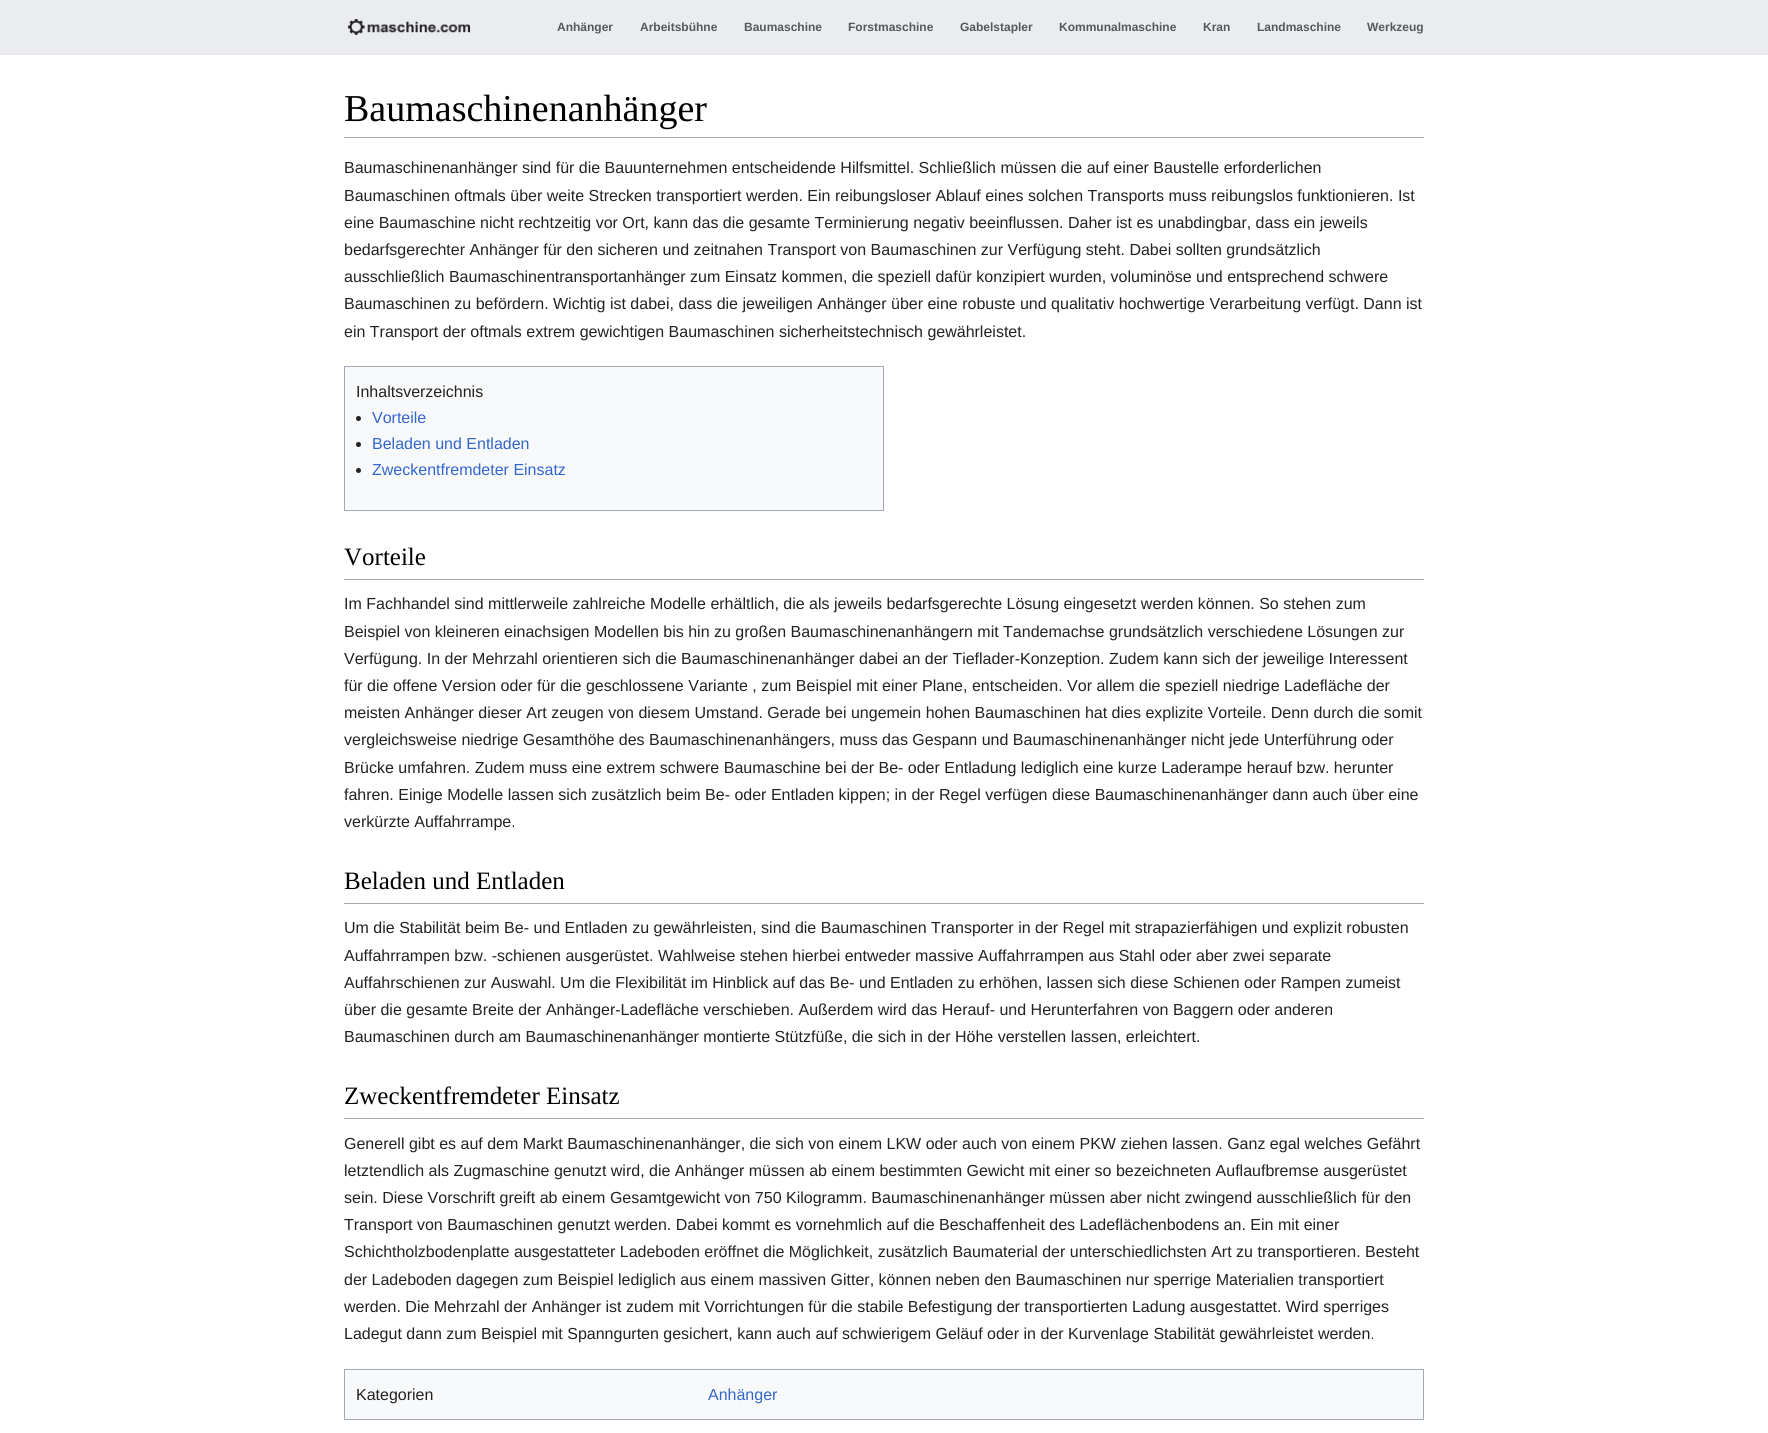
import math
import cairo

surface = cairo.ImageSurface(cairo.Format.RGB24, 1768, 1433)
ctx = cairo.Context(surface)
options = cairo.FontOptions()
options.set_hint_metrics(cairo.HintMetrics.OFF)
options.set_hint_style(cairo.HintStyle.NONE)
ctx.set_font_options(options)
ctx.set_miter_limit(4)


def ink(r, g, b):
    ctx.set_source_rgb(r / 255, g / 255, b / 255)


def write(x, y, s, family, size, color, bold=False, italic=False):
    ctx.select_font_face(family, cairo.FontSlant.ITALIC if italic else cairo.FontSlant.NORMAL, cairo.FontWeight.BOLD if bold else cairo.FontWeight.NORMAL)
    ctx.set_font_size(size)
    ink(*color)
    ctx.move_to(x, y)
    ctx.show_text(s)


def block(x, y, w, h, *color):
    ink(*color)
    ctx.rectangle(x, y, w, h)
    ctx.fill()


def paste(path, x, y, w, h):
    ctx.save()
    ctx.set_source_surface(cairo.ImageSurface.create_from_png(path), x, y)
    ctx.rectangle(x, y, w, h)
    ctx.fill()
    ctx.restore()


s1 = dict(family="Liberation Sans", size=12, color=(84, 89, 93), bold=True)
s2 = dict(family="Liberation Serif", size=38, color=(0, 0, 0))
s3 = dict(family="Liberation Sans", size=16, color=(34, 34, 34))
s4 = dict(family="Liberation Sans", size=16, color=(51, 102, 204))
s5 = dict(family="Liberation Serif", size=25, color=(0, 0, 0))

ink(255, 255, 255)
ctx.paint()
block(0, 54, 1768, 1, 230, 230, 230)
block(0, 0, 1768, 54, 234, 236, 240)
paste("pic1.png", 348, 19, 123, 16)
write(557, 31, "Anhänger", **s1)
write(640, 31, "Arbeitsbühne", **s1)
write(744, 31, "Baumaschine", **s1)
write(848, 31, "Forstmaschine", **s1)
write(960, 31, "Gabelstapler", **s1)
write(1059, 31, "Kommunalmaschine", **s1)
write(1203, 31, "Kran", **s1)
write(1257, 31, "Landmaschine", **s1)
write(1367, 31, "Werkzeug", **s1)
block(344, 137, 1080, 1, 162, 169, 177)
write(344, 121, "Baumaschinenanhänger", **s2)
write(344, 173, "Baumaschinenanhänger sind für die Bauunternehmen entscheidende Hilfsmittel. Schließlich müssen die auf einer Baustelle erforderlichen", **s3)
write(344, 201, "Baumaschinen oftmals über weite Strecken transportiert werden. Ein reibungsloser Ablauf eines solchen Transports muss reibungslos funktionieren. Ist", **s3)
write(344, 228, "eine Baumaschine nicht rechtzeitig vor Ort, kann das die gesamte Terminierung negativ beeinflussen. Daher ist es unabdingbar, dass ein jeweils", **s3)
write(344, 255, "bedarfsgerechter Anhänger für den sicheren und zeitnahen Transport von Baumaschinen zur Verfügung steht. Dabei sollten grundsätzlich", **s3)
write(344, 282, "ausschließlich Baumaschinentransportanhänger zum Einsatz kommen, die speziell dafür konzipiert wurden, voluminöse und entsprechend schwere", **s3)
write(344, 309, "Baumaschinen zu befördern. Wichtig ist dabei, dass die jeweiligen Anhänger über eine robuste und qualitativ hochwertige Verarbeitung verfügt. Dann ist", **s3)
write(344, 337, "ein Transport der oftmals extrem gewichtigen Baumaschinen sicherheitstechnisch gewährleistet.", **s3)
ink(248, 249, 250)
ctx.rectangle(344.5, 366.5, 539, 144)
ctx.fill_preserve()
ink(162, 169, 177)
ctx.set_line_width(1)
ctx.stroke()
write(356, 397, "Inhaltsverzeichnis", **s3)
ctx.new_path()
ctx.arc(358.5, 418.5, 2.5, 0, 2 * math.pi)
ctx.fill()
write(372, 423, "Vorteile", **s4)
ink(34, 34, 34)
ctx.new_path()
ctx.arc(358.5, 444.5, 2.5, 0, 2 * math.pi)
ctx.fill()
write(372, 449, "Beladen und Entladen", **s4)
ink(34, 34, 34)
ctx.new_path()
ctx.arc(358.5, 470.5, 2.5, 0, 2 * math.pi)
ctx.fill()
write(372, 475, "Zweckentfremdeter Einsatz", **s4)
block(344, 579, 1080, 1, 162, 169, 177)
write(344, 565, "Vorteile", **s5)
write(344, 609, "Im Fachhandel sind mittlerweile zahlreiche Modelle erhältlich, die als jeweils bedarfsgerechte Lösung eingesetzt werden können. So stehen zum", **s3)
write(344, 637, "Beispiel von kleineren einachsigen Modellen bis hin zu großen Baumaschinenanhängern mit Tandemachse grundsätzlich verschiedene Lösungen zur", **s3)
write(344, 664, "Verfügung. In der Mehrzahl orientieren sich die Baumaschinenanhänger dabei an der Tieflader-Konzeption. Zudem kann sich der jeweilige Interessent", **s3)
write(344, 691, "für die offene Version oder für die geschlossene Variante , zum Beispiel mit einer Plane, entscheiden. Vor allem die speziell niedrige Ladefläche der", **s3)
write(344, 718, "meisten Anhänger dieser Art zeugen von diesem Umstand. Gerade bei ungemein hohen Baumaschinen hat dies explizite Vorteile. Denn durch die somit", **s3)
write(344, 745, "vergleichsweise niedrige Gesamthöhe des Baumaschinenanhängers, muss das Gespann und Baumaschinenanhänger nicht jede Unterführung oder", **s3)
write(344, 773, "Brücke umfahren. Zudem muss eine extrem schwere Baumaschine bei der Be- oder Entladung lediglich eine kurze Laderampe herauf bzw. herunter", **s3)
write(344, 800, "fahren. Einige Modelle lassen sich zusätzlich beim Be- oder Entladen kippen; in der Regel verfügen diese Baumaschinenanhänger dann auch über eine", **s3)
write(344, 827, "verkürzte Auffahrrampe.", **s3)
block(344, 903, 1080, 1, 162, 169, 177)
write(344, 889, "Beladen und Entladen", **s5)
write(344, 933, "Um die Stabilität beim Be- und Entladen zu gewährleisten, sind die Baumaschinen Transporter in der Regel mit strapazierfähigen und explizit robusten", **s3)
write(344, 961, "Auffahrrampen bzw. -schienen ausgerüstet. Wahlweise stehen hierbei entweder massive Auffahrrampen aus Stahl oder aber zwei separate", **s3)
write(344, 988, "Auffahrschienen zur Auswahl. Um die Flexibilität im Hinblick auf das Be- und Entladen zu erhöhen, lassen sich diese Schienen oder Rampen zumeist", **s3)
write(344, 1015, "über die gesamte Breite der Anhänger-Ladefläche verschieben. Außerdem wird das Herauf- und Herunterfahren von Baggern oder anderen", **s3)
write(344, 1042, "Baumaschinen durch am Baumaschinenanhänger montierte Stützfüße, die sich in der Höhe verstellen lassen, erleichtert.", **s3)
block(344, 1118, 1080, 1, 162, 169, 177)
write(344, 1104, "Zweckentfremdeter Einsatz", **s5)
write(344, 1149, "Generell gibt es auf dem Markt Baumaschinenanhänger, die sich von einem LKW oder auch von einem PKW ziehen lassen. Ganz egal welches Gefährt", **s3)
write(344, 1176, "letztendlich als Zugmaschine genutzt wird, die Anhänger müssen ab einem bestimmten Gewicht mit einer so bezeichneten Auflaufbremse ausgerüstet", **s3)
write(344, 1203, "sein. Diese Vorschrift greift ab einem Gesamtgewicht von 750 Kilogramm. Baumaschinenanhänger müssen aber nicht zwingend ausschließlich für den", **s3)
write(344, 1230, "Transport von Baumaschinen genutzt werden. Dabei kommt es vornehmlich auf die Beschaffenheit des Ladeflächenbodens an. Ein mit einer", **s3)
write(344, 1257, "Schichtholzbodenplatte ausgestatteter Ladeboden eröffnet die Möglichkeit, zusätzlich Baumaterial der unterschiedlichsten Art zu transportieren. Besteht", **s3)
write(344, 1285, "der Ladeboden dagegen zum Beispiel lediglich aus einem massiven Gitter, können neben den Baumaschinen nur sperrige Materialien transportiert", **s3)
write(344, 1312, "werden. Die Mehrzahl der Anhänger ist zudem mit Vorrichtungen für die stabile Befestigung der transportierten Ladung ausgestattet. Wird sperriges", **s3)
write(344, 1339, "Ladegut dann zum Beispiel mit Spanngurten gesichert, kann auch auf schwierigem Geläuf oder in der Kurvenlage Stabilität gewährleistet werden.", **s3)
ink(248, 249, 250)
ctx.rectangle(344.5, 1369.5, 1079, 50)
ctx.fill_preserve()
ink(162, 169, 177)
ctx.stroke()
write(356, 1400, "Kategorien", **s3)
write(708, 1400, "Anhänger", **s4)
surface.write_to_png("screenshot.png")
